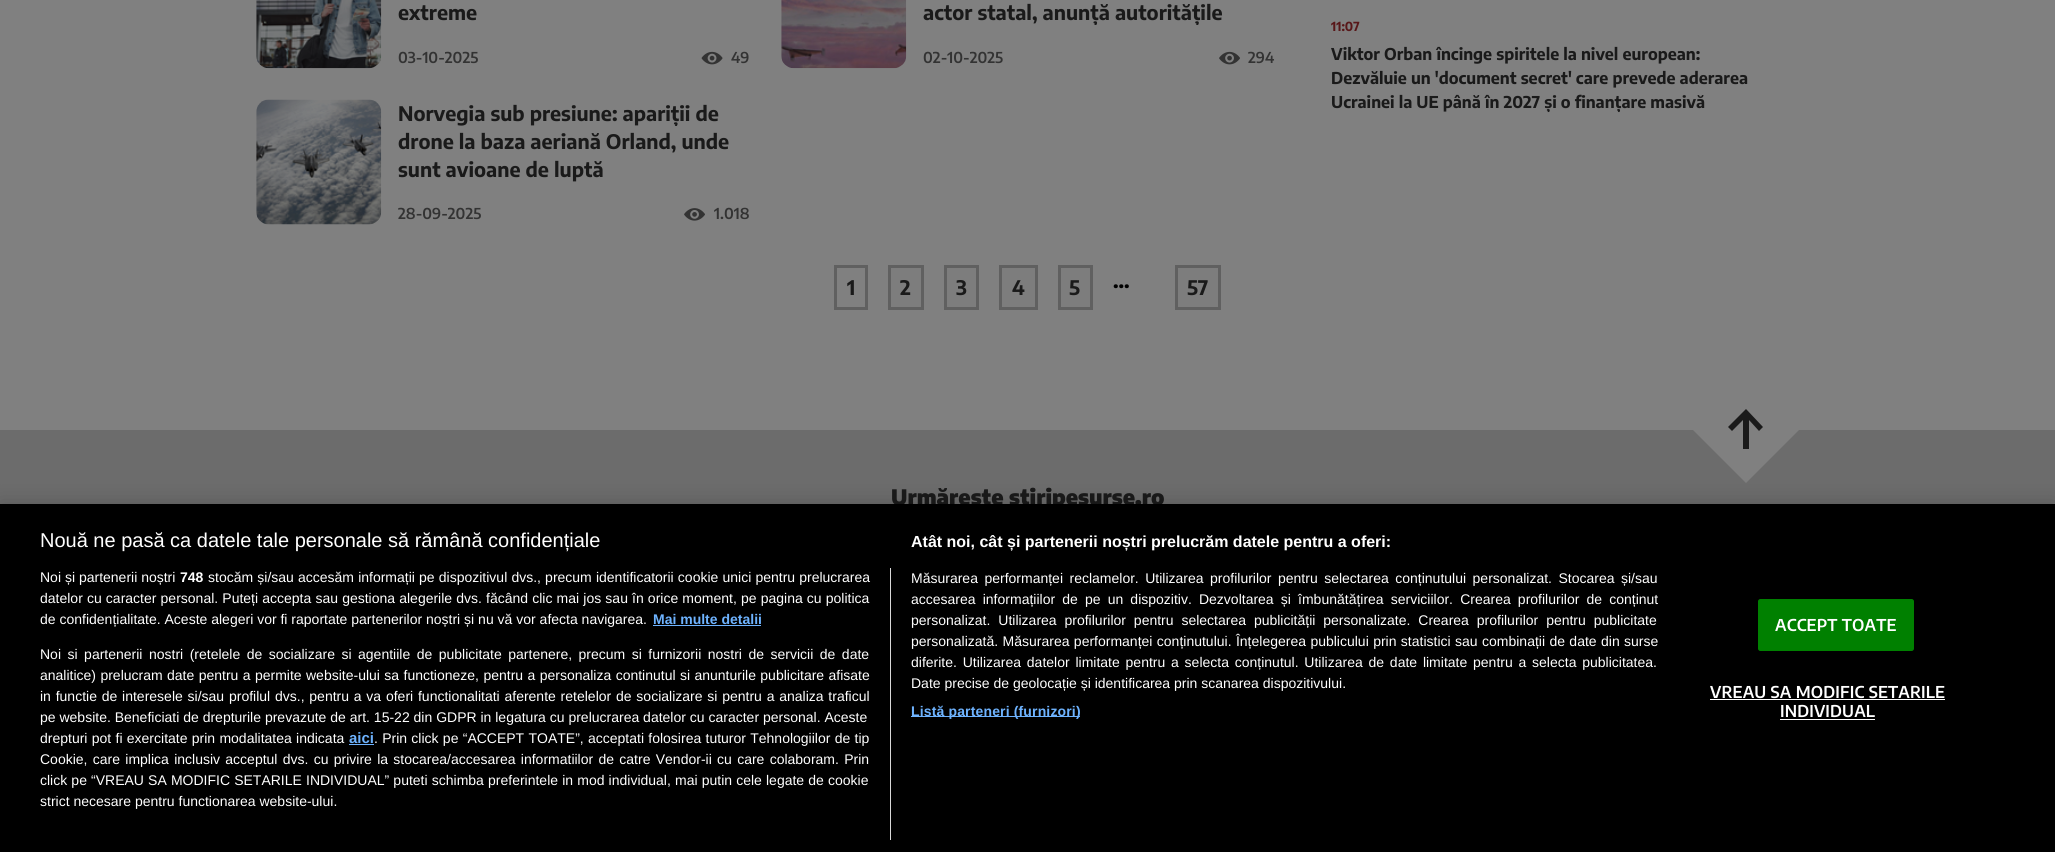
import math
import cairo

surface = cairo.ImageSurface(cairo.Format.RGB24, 2055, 852)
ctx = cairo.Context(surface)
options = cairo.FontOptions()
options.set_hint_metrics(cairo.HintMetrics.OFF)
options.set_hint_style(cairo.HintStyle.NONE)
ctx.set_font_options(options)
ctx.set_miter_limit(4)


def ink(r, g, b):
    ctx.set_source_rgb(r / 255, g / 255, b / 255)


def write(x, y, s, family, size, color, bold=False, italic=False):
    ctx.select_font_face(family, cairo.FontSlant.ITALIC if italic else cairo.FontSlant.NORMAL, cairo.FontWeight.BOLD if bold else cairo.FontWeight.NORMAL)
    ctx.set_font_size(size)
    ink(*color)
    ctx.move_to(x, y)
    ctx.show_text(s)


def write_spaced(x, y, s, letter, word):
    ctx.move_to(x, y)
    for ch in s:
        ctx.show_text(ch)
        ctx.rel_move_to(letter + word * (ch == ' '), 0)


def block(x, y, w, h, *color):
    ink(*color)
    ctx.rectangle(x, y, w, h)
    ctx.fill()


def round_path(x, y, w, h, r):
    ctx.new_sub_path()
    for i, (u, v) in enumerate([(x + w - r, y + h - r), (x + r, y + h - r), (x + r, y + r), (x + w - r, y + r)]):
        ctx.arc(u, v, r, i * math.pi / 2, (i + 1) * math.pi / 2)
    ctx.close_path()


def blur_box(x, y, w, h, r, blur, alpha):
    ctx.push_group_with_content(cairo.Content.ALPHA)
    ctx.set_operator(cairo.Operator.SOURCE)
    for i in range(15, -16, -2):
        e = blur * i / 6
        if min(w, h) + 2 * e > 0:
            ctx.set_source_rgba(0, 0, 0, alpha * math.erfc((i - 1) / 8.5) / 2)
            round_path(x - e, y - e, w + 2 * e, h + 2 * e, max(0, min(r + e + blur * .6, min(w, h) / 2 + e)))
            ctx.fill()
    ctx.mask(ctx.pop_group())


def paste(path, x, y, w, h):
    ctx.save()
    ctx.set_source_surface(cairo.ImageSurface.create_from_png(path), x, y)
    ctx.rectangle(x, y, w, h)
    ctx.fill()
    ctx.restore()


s1 = dict(family="Encode Sans Condensed", size=20, color=(26, 26, 26), bold=True)
s2 = dict(family="Encode Sans Condensed SemiBold", size=15, color=(51, 51, 51))
s3 = dict(family="Encode Sans Condensed", size=12.5, color=(88, 23, 25), bold=True)
s4 = dict(family="Encode Sans Condensed", size=16.25, color=(26, 26, 26), bold=True)
s5 = dict(family="Encode Sans Condensed", size=20, color=(1, 1, 1), bold=True)
s6 = dict(family="Encode Sans Condensed Black", size=21.25, color=(26, 26, 26))
s7 = dict(family="Liberation Sans", size=20, color=(255, 255, 255))
s8 = dict(family="Liberation Sans", size=16, color=(255, 255, 255), bold=True)
s9 = dict(family="Liberation Sans", size=14, color=(255, 255, 255))
s10 = dict(family="Liberation Sans", size=14, color=(255, 255, 255), bold=True)
s11 = dict(family="Liberation Sans", size=14, color=(110, 179, 255), bold=True)
s12 = dict(family="Liberation Sans", size=15, color=(110, 179, 255), bold=True)

ink(128, 128, 128)
ctx.paint()
paste("pic1.png", 256, 0, 126, 69)
write(398, 20, "extreme", **s1)
write(398, 63, "03-10-2025", **s2)
paste("pic2.png", 701, 51, 22, 14)
write(731, 63, "49", **s2)
paste("pic3.png", 781, 0, 126, 69)
write(923, 20, "actor statal, anunță autoritățile", **s1)
write(923, 63, "02-10-2025", **s2)
paste("pic4.png", 1219, 51, 21, 14)
write(1248, 63, "294", **s2)
paste("pic5.png", 256, 99, 126, 126)
write(398, 121, "Norvegia sub presiune: apariții de", **s1)
write(398, 149, "drone la baza aeriană Orland, unde", **s1)
write(398, 177, "sunt avioane de luptă", **s1)
write(398, 219, "28-09-2025", **s2)
paste("pic6.png", 684, 208, 21, 13)
write(714, 219, "1.018", **s2)
write(1331, 31, "11:07", **s3)
write(1331, 60, "Viktor Orban încinge spiritele la nivel european:", **s4)
write(1331, 84, "Dezvăluie un 'document secret' care prevede aderarea", **s4)
write(1331, 108, "Ucrainei la UE până în 2027 și o finanțare masivă", **s4)
ctx.rectangle(835.5, 266.5, 31, 42)
ink(96, 96, 96)
ctx.set_line_width(3)
ctx.stroke()
write(847, 295, "1", **s1)
ink(125, 125, 125)
ctx.rectangle(889.5, 266.5, 33, 42)
ctx.fill_preserve()
ink(96, 96, 96)
ctx.stroke()
write(900, 295, "2", **s1)
ink(125, 125, 125)
ctx.rectangle(945.5, 266.5, 32, 42)
ctx.fill_preserve()
ink(96, 96, 96)
ctx.stroke()
write(956, 295, "3", **s1)
ink(125, 125, 125)
ctx.rectangle(1000.5, 266.5, 36, 42)
ctx.fill_preserve()
ink(96, 96, 96)
ctx.stroke()
write(1012, 295, "4", **s1)
ink(125, 125, 125)
ctx.rectangle(1059.5, 266.5, 32, 42)
ctx.fill_preserve()
ink(96, 96, 96)
ctx.stroke()
write(1069, 295, "5", **s1)
write(1113, 288, "...", **s5)
ink(125, 125, 125)
ctx.rectangle(1176.5, 266.5, 43, 42)
ctx.fill_preserve()
ink(96, 96, 96)
ctx.stroke()
write(1187, 295, "57", **s1)
block(0, 430, 2055, 74, 108, 108, 108)
ink(128, 128, 128)
ctx.new_path()
ctx.move_to(1693, 430)
ctx.line_to(1746, 377)
ctx.line_to(1799, 430)
ctx.line_to(1746, 483)
ctx.close_path()
ctx.fill()
ink(26, 26, 26)
ctx.set_fill_rule(cairo.FillRule.EVEN_ODD)
ctx.new_path()
ctx.move_to(1728, 427)
ctx.line_to(1746, 409)
ctx.line_to(1763, 427)
ctx.line_to(1759, 431)
ctx.line_to(1749, 420)
ctx.line_to(1749, 449)
ctx.line_to(1743, 449)
ctx.line_to(1743, 420)
ctx.line_to(1732, 431)
ctx.close_path()
ctx.fill()
write(891, 505, "Urmărește stiripesurse.ro", **s6)
ink(0, 0, 0)
blur_box(0, 504, 2055, 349, 0, 11, 0.2)
block(0, 504, 2055, 348, 0, 0, 0)
write(40, 547, "Nouă ne pasă ca datele tale personale să rămână confidențiale", **s7)
write(911, 547, "Atât noi, cât și partenerii noștri prelucrăm datele pentru a oferi:", **s8)
ctx.select_font_face("Liberation Sans")
ctx.set_font_size(14)
write_spaced(911, 583, "Măsurarea performanței reclamelor. Utilizarea profilurilor pentru selectarea conținutului personalizat. Stocarea și/sau", 0, 2.6)
write_spaced(911, 604, "accesarea informațiilor de pe un dispozitiv. Dezvoltarea și îmbunătățirea serviciilor. Crearea profilurilor de conținut", 0, 3.25)
write_spaced(911, 625, "personalizat. Utilizarea profilurilor pentru selectarea publicității personalizate. Crearea profilurilor pentru publicitate", 0, 4)
write_spaced(911, 646, "personalizată. Măsurarea performanței conținutului. Înțelegerea publicului prin statistici sau combinații de date din surse", 0, 0.5)
write_spaced(911, 667, "diferite. Utilizarea datelor limitate pentru a selecta conținutul. Utilizarea de date limitate pentru a selecta publicitatea.", 0, 1.9)
write(911, 688, "Date precise de geolocație și identificarea prin scanarea dispozitivului.", **s9)
block(911, 716, 169, 1, 110, 179, 255)
ctx.select_font_face("Liberation Sans", cairo.FontSlant.NORMAL, cairo.FontWeight.BOLD)
write_spaced(911, 716, "Listă parteneri (furnizori)", 0.15, 0)
block(890, 568, 1, 272, 216, 216, 216)
write(40, 582, "Noi și partenerii noștri", **s9)
write(180, 582, "748", **s10)
ctx.select_font_face("Liberation Sans")
write_spaced(208, 582, "stocăm și/sau accesăm informații pe dispozitivul dvs., precum identificatorii cookie unici pentru prelucrarea", 0, 0.25)
write_spaced(40, 603, "datelor cu caracter personal. Puteți accepta sau gestiona alegerile dvs. făcând clic mai jos sau în orice moment, pe pagina cu politica", 0, 0.25)
write(40, 624, "de confidențialitate. Aceste alegeri vor fi raportate partenerilor noștri și nu vă vor afecta navigarea.", **s9)
write(653, 624, "Mai multe detalii", **s11)
block(653, 625, 108, 1, 110, 179, 255)
ctx.select_font_face("Liberation Sans")
ink(255, 255, 255)
write_spaced(40, 659, "Noi si partenerii nostri (retelele de socializare si agentiile de publicitate partenere, precum si furnizorii nostri de servicii de date", 0, 2.6)
write_spaced(40, 680, "analitice) prelucram date pentru a permite website-ului sa functioneze, pentru a personaliza continutul si anunturile publicitare afisate", 0, 0.5)
write_spaced(40, 701, "in functie de interesele si/sau profilul dvs., pentru a va oferi functionalitati aferente retelelor de socializare si pentru a analiza traficul", 0, 0.9)
write(40, 722, "pe website. Beneficiati de drepturile prevazute de art. 15-22 din GDPR in legatura cu prelucrarea datelor cu caracter personal. Aceste", **s9)
write_spaced(40, 743, "drepturi pot fi exercitate prin modalitatea indicata", 0, 0.4)
write(349, 743, "aici", **s12)
block(349, 744, 25, 1, 110, 179, 255)
ctx.select_font_face("Liberation Sans")
ctx.set_font_size(14)
ink(255, 255, 255)
write_spaced(374, 743, ". Prin click pe “ACCEPT TOATE”, acceptati folosirea tuturor Tehnologiilor de tip", 0, 0.4)
write_spaced(40, 764, "Cookie, care implica inclusiv acceptul dvs. cu privire la stocarea/accesarea informatiilor de catre Vendor-ii cu care colaboram. Prin", 0, 1.4)
write_spaced(40, 785, "click pe “VREAU SA MODIFIC SETARILE INDIVIDUAL” puteti schimba preferintele in mod individual, mai putin cele legate de cookie", 0, 0.25)
write(40, 806, "strict necesare pentru functionarea website-ului.", **s9)
ink(0, 128, 0)
round_path(1758.5, 599.5, 155, 51, 2)
ctx.fill_preserve()
ctx.set_line_width(1)
ctx.stroke()
ctx.select_font_face("Encode Sans Condensed SemiBold")
ctx.set_font_size(16.25)
ink(255, 255, 255)
write_spaced(1775, 631, "ACCEPT TOATE", 0.15, 0)
write_spaced(1710, 698, "VREAU SA MODIFIC SETARILE", 0.15, 0)
block(1710, 699, 235, 1, 255, 255, 255)
write_spaced(1780, 717, "INDIVIDUAL", 0.15, 0)
block(1780, 719, 95, 1, 255, 255, 255)
surface.write_to_png("screenshot.png")
